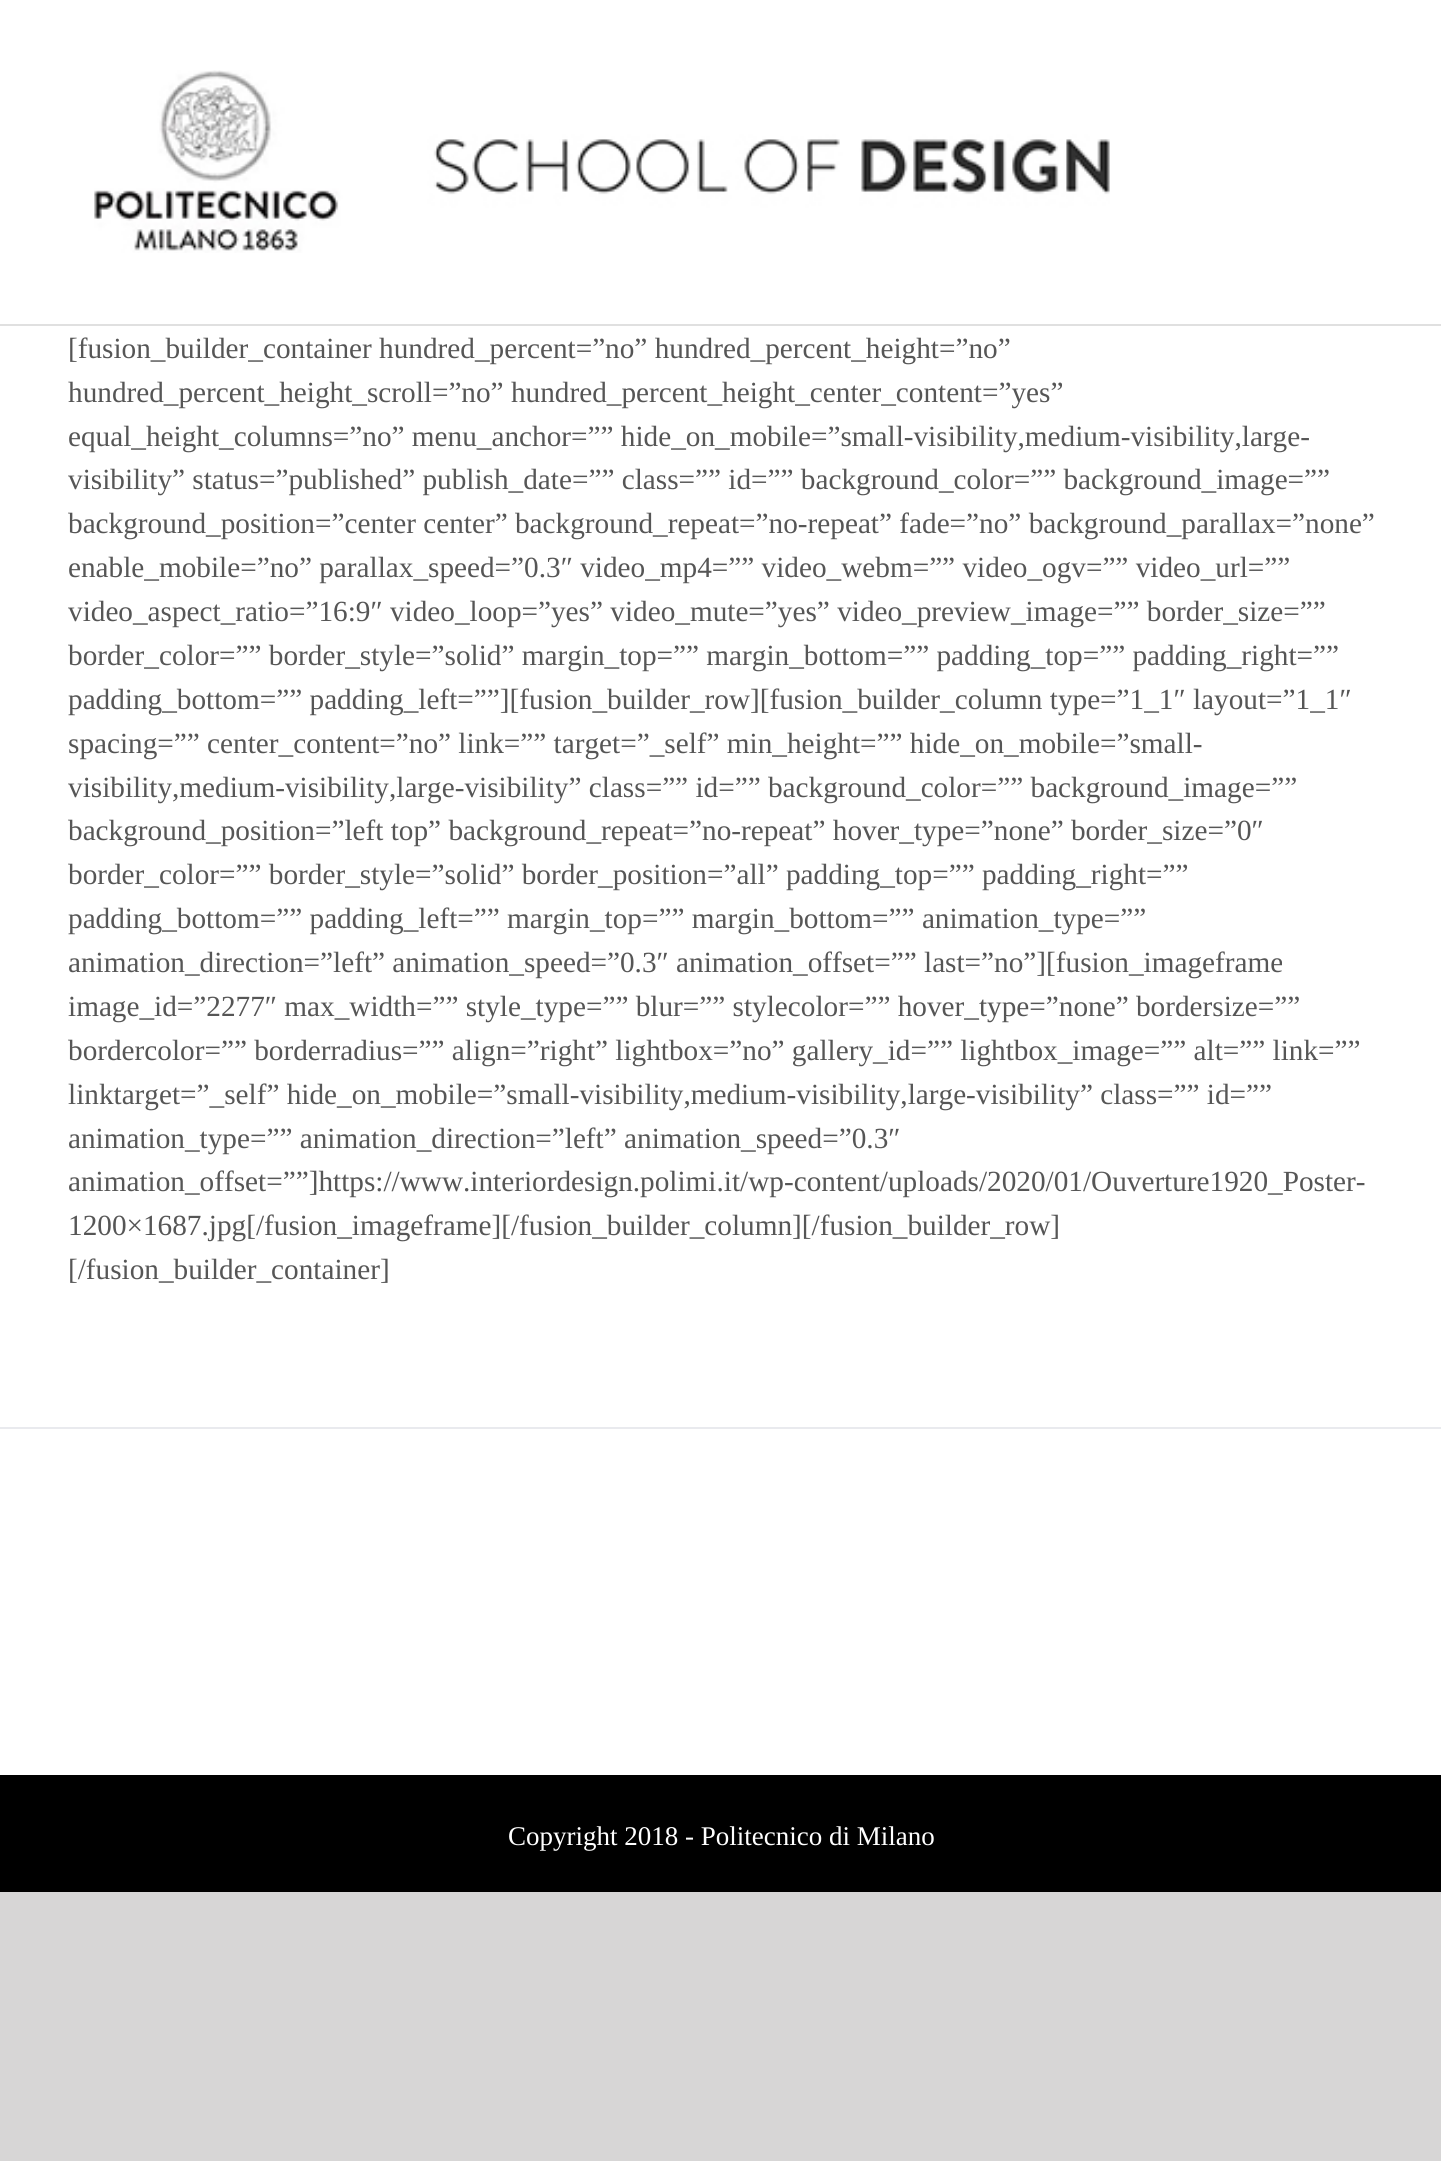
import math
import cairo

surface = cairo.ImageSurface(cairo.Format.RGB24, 1441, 2161)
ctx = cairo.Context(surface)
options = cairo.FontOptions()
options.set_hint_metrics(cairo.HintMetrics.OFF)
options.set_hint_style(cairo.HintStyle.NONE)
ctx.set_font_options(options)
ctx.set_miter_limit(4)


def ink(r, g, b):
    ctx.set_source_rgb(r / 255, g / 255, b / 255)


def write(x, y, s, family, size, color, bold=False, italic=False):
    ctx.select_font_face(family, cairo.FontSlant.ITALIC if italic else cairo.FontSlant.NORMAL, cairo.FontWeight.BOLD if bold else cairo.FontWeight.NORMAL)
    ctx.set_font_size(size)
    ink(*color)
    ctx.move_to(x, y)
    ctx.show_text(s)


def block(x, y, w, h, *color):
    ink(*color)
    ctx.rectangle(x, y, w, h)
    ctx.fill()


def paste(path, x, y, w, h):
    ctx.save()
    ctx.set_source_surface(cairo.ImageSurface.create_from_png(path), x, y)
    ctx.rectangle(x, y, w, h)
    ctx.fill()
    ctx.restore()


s1 = dict(family="Liberation Serif", size=29.25, color=(86, 86, 86))
s2 = dict(family="Liberation Serif", size=27, color=(255, 255, 255))

ink(215, 214, 214)
ctx.paint()
block(0, 0, 1441, 324, 255, 255, 255)
block(0, 324, 1441, 2, 224, 224, 224)
paste("pic1.png", 94, 70, 1016, 183)
block(0, 326, 1441, 1101, 255, 255, 255)
write(68, 358, "[fusion_builder_container hundred_percent=”no” hundred_percent_height=”no”", **s1)
write(68, 402, "hundred_percent_height_scroll=”no” hundred_percent_height_center_content=”yes”", **s1)
write(68, 446, "equal_height_columns=”no” menu_anchor=”” hide_on_mobile=”small-visibility,medium-visibility,large-", **s1)
write(68, 489, "visibility” status=”published” publish_date=”” class=”” id=”” background_color=”” background_image=””", **s1)
write(68, 533, "background_position=”center center” background_repeat=”no-repeat” fade=”no” background_parallax=”none”", **s1)
write(68, 577, "enable_mobile=”no” parallax_speed=”0.3″ video_mp4=”” video_webm=”” video_ogv=”” video_url=””", **s1)
write(68, 621, "video_aspect_ratio=”16:9″ video_loop=”yes” video_mute=”yes” video_preview_image=”” border_size=””", **s1)
write(68, 665, "border_color=”” border_style=”solid” margin_top=”” margin_bottom=”” padding_top=”” padding_right=””", **s1)
write(68, 709, "padding_bottom=”” padding_left=””][fusion_builder_row][fusion_builder_column type=”1_1″ layout=”1_1″", **s1)
write(68, 753, "spacing=”” center_content=”no” link=”” target=”_self” min_height=”” hide_on_mobile=”small-", **s1)
write(68, 797, "visibility,medium-visibility,large-visibility” class=”” id=”” background_color=”” background_image=””", **s1)
write(68, 840, "background_position=”left top” background_repeat=”no-repeat” hover_type=”none” border_size=”0″", **s1)
write(68, 884, "border_color=”” border_style=”solid” border_position=”all” padding_top=”” padding_right=””", **s1)
write(68, 928, "padding_bottom=”” padding_left=”” margin_top=”” margin_bottom=”” animation_type=””", **s1)
write(68, 972, "animation_direction=”left” animation_speed=”0.3″ animation_offset=”” last=”no”][fusion_imageframe", **s1)
write(68, 1016, "image_id=”2277″ max_width=”” style_type=”” blur=”” stylecolor=”” hover_type=”none” bordersize=””", **s1)
write(68, 1060, "bordercolor=”” borderradius=”” align=”right” lightbox=”no” gallery_id=”” lightbox_image=”” alt=”” link=””", **s1)
write(68, 1104, "linktarget=”_self” hide_on_mobile=”small-visibility,medium-visibility,large-visibility” class=”” id=””", **s1)
write(68, 1148, "animation_type=”” animation_direction=”left” animation_speed=”0.3″", **s1)
write(68, 1191, "animation_offset=””]https://www.interiordesign.polimi.it/wp-content/uploads/2020/01/Ouverture1920_Poster-", **s1)
write(68, 1235, "1200×1687.jpg[/fusion_imageframe][/fusion_builder_column][/fusion_builder_row]", **s1)
write(68, 1279, "[/fusion_builder_container]", **s1)
block(0, 1429, 1441, 346, 255, 255, 255)
block(0, 1427, 1441, 2, 233, 234, 238)
block(0, 1775, 1441, 117, 0, 0, 0)
write(508, 1845, "Copyright 2018 - Politecnico di Milano", **s2)
surface.write_to_png("screenshot.png")
